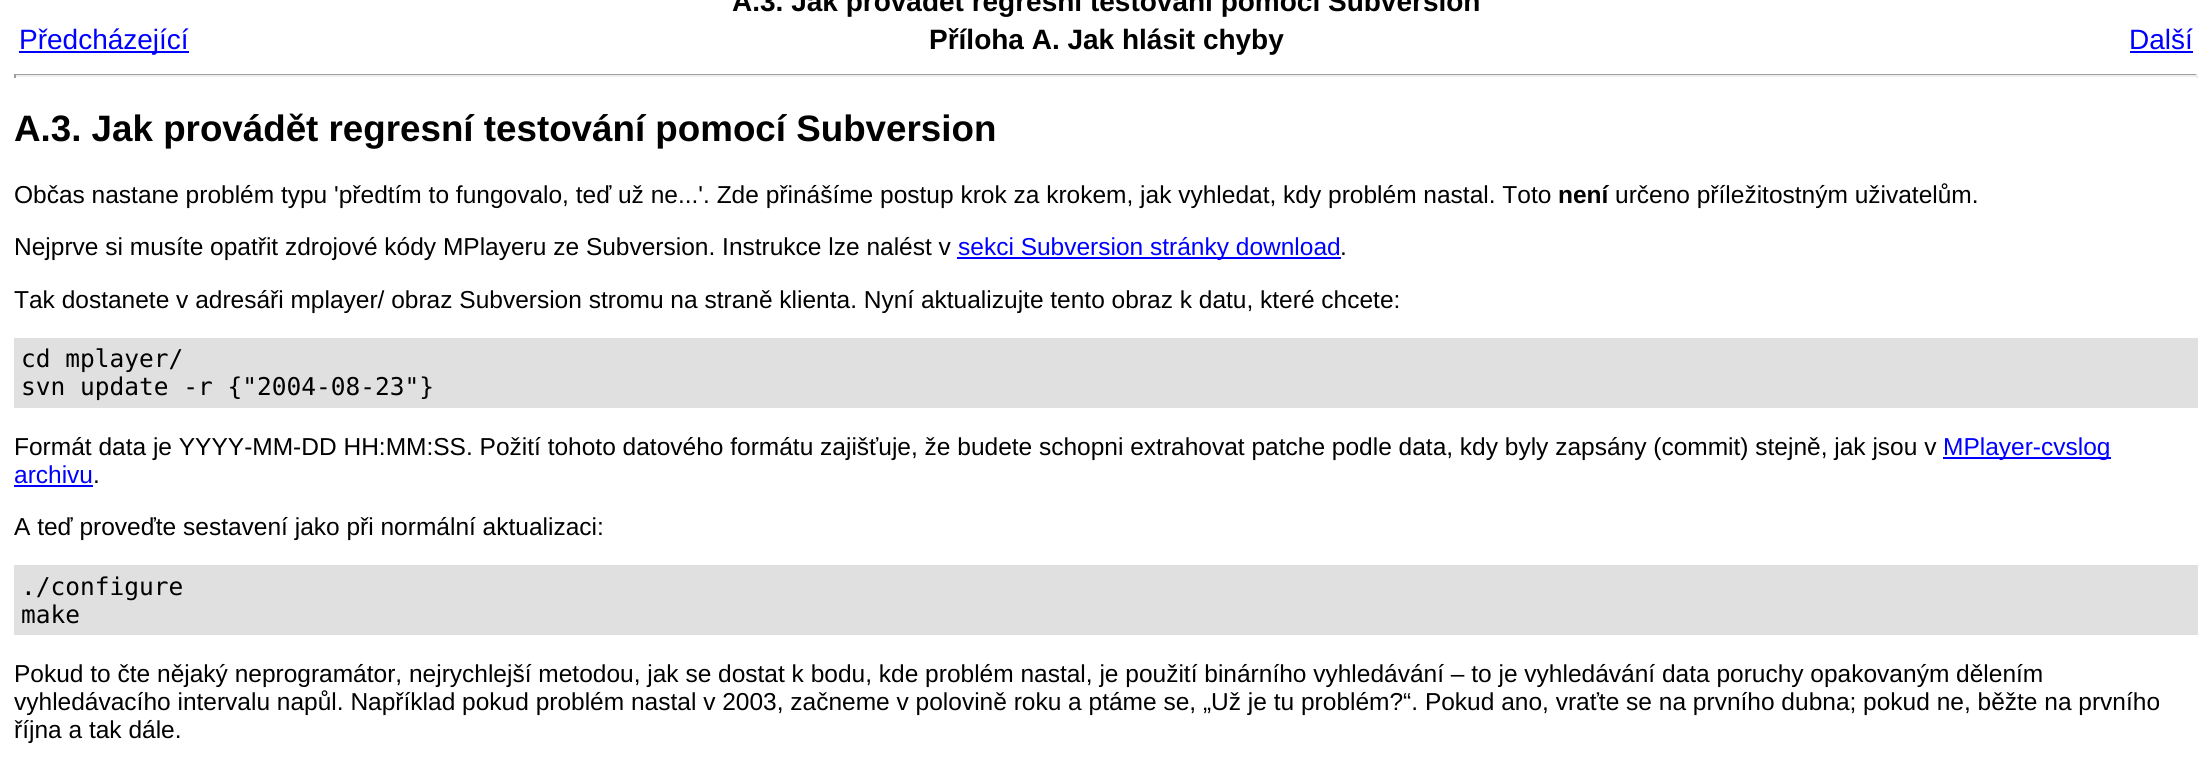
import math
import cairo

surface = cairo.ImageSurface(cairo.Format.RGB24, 2211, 758)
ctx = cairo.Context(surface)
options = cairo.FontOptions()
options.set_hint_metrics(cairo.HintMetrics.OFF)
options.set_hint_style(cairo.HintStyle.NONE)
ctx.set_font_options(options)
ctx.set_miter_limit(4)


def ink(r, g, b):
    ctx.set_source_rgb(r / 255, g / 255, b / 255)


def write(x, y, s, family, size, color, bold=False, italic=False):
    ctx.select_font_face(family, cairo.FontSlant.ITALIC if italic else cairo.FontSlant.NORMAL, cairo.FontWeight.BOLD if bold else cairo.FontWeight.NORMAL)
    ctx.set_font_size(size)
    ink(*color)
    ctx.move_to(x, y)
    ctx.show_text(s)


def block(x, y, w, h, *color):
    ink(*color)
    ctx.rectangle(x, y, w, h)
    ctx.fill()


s1 = dict(family="Liberation Sans", size=28, color=(0, 0, 0), bold=True)
s2 = dict(family="Liberation Sans", size=28, color=(0, 0, 255))
s3 = dict(family="Liberation Sans", size=36.75, color=(0, 0, 0), bold=True)
s4 = dict(family="Liberation Sans", size=24.5, color=(0, 0, 0))
s5 = dict(family="Liberation Sans", size=24.5, color=(0, 0, 0), bold=True)
s6 = dict(family="Liberation Sans", size=24.5, color=(0, 0, 255))
s7 = dict(family="DejaVu Sans Mono", size=24.5, color=(0, 0, 0))

ink(255, 255, 255)
ctx.paint()
write(732, 11, "A.3. Jak provádět regresní testování pomocí Subversion", **s1)
block(19, 51, 170, 2, 0, 0, 255)
write(19, 49, "Předcházející", **s2)
write(929, 49, "Příloha A. Jak hlásit chyby", **s1)
write(2129, 49, "Další", **s2)
block(2130, 51, 63, 2, 0, 0, 255)
block(14, 74, 2184, 1, 159, 159, 159)
block(2196, 74, 2, 4, 238, 238, 238)
block(14, 75, 2184, 2, 238, 238, 238)
block(14, 74, 2, 4, 159, 159, 159)
write(14, 141, "A.3. Jak provádět regresní testování pomocí Subversion", **s3)
write(14, 203, "Občas nastane problém typu 'předtím to fungovalo, teď už ne...'. Zde přinášíme postup krok za krokem, jak vyhledat, kdy problém nastal. Toto", **s4)
write(1558, 203, "není", **s5)
write(1615, 203, "určeno příležitostným uživatelům.", **s4)
write(14, 255, "Nejprve si musíte opatřit zdrojové kódy MPlayeru ze Subversion. Instrukce lze nalést v", **s4)
block(957, 257, 384, 2, 0, 0, 255)
write(958, 255, "sekci Subversion stránky download", **s6)
write(1340, 255, ".", **s4)
write(14, 308, "Tak dostanete v adresáři mplayer/ obraz Subversion stromu na straně klienta. Nyní aktualizujte tento obraz k datu, které chcete:", **s4)
block(14, 338, 2184, 70, 224, 224, 224)
write(21, 367, "cd mplayer/", **s7)
write(21, 395, "svn update -r {\"2004-08-23\"}", **s7)
write(14, 455, "Formát data je YYYY-MM-DD HH:MM:SS. Požití tohoto datového formátu zajišťuje, že budete schopni extrahovat patche podle data, kdy byly zapsány (commit) stejně, jak jsou v", **s4)
block(1943, 457, 168, 2, 0, 0, 255)
write(1943, 455, "MPlayer-cvslog", **s6)
write(14, 483, "archivu", **s6)
block(14, 485, 79, 2, 0, 0, 255)
write(93, 483, ".", **s4)
write(14, 535, "A teď proveďte sestavení jako při normální aktualizaci:", **s4)
block(14, 565, 2184, 70, 224, 224, 224)
write(21, 595, "./configure", **s7)
write(21, 623, "make", **s7)
write(14, 682, "Pokud to čte nějaký neprogramátor, nejrychlejší metodou, jak se dostat k bodu, kde problém nastal, je použití binárního vyhledávání – to je vyhledávání data poruchy opakovaným dělením", **s4)
write(14, 710, "vyhledávacího intervalu napůl. Například pokud problém nastal v 2003, začneme v polovině roku a ptáme se, „Už je tu problém?“. Pokud ano, vraťte se na prvního dubna; pokud ne, běžte na prvního", **s4)
write(14, 738, "října a tak dále.", **s4)
surface.write_to_png("screenshot.png")
